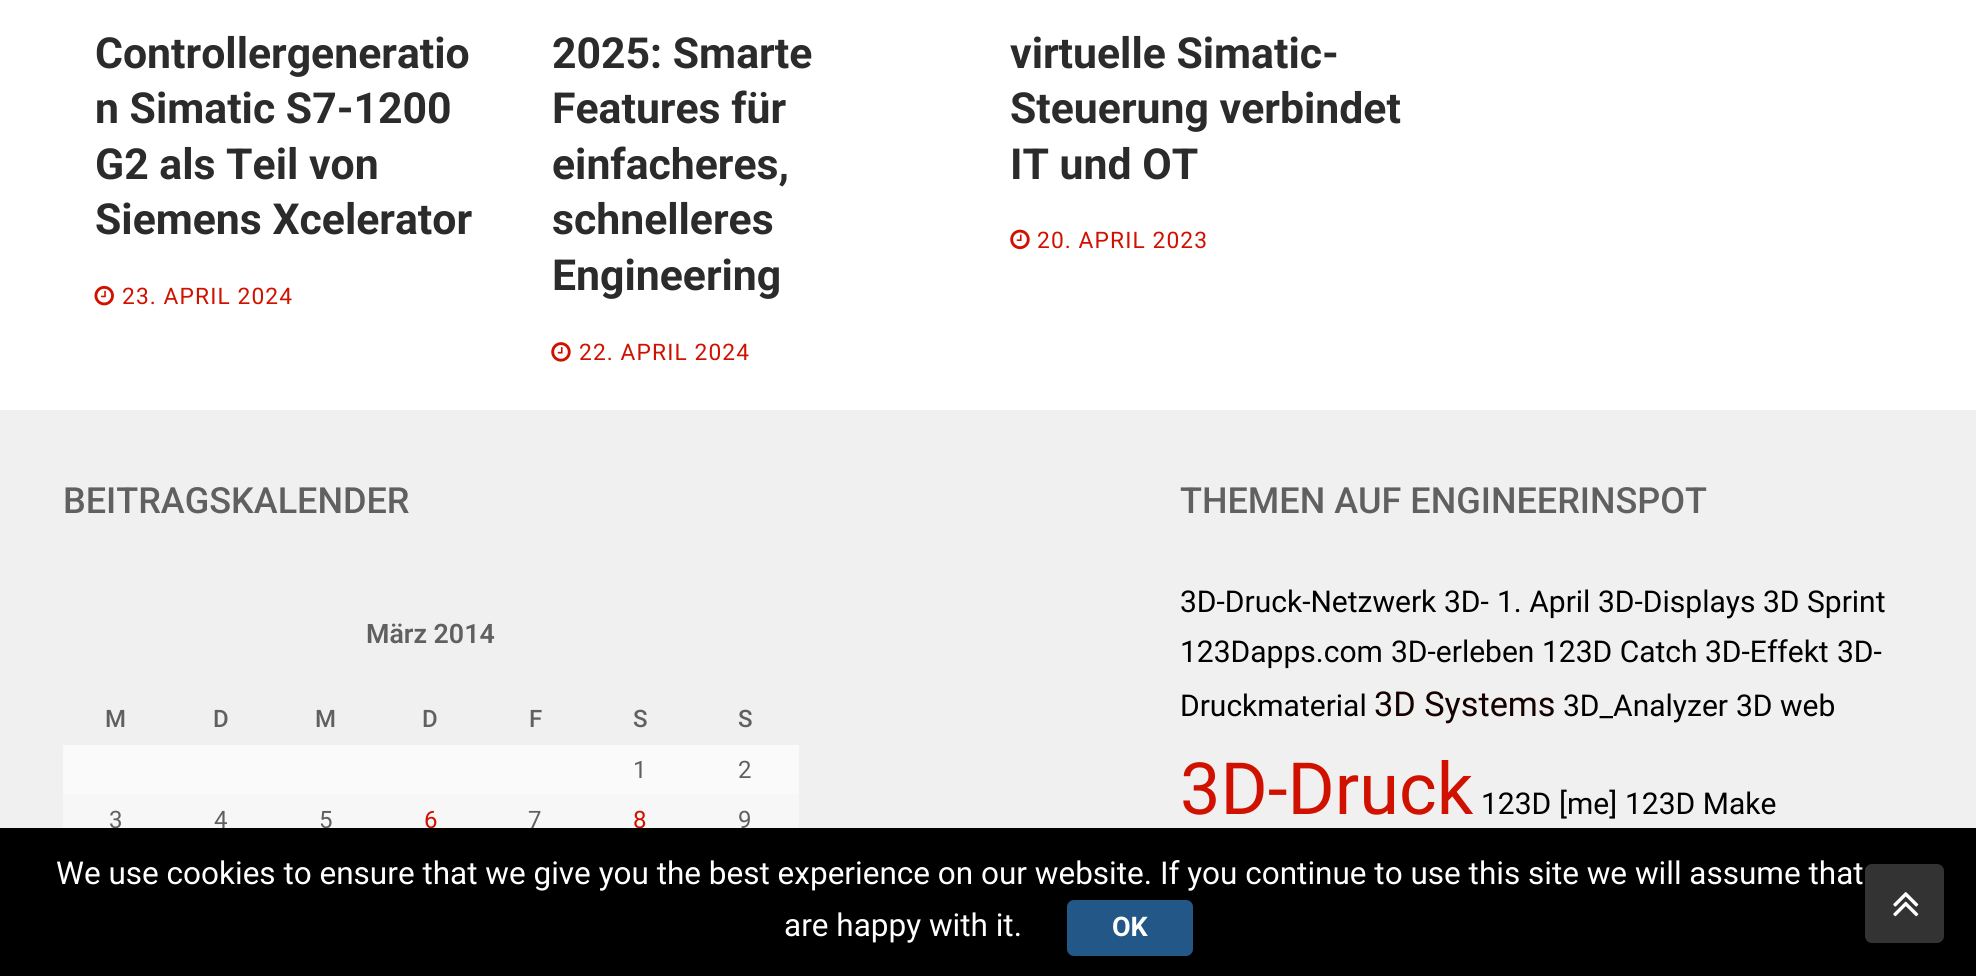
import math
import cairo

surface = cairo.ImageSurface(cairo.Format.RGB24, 1976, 976)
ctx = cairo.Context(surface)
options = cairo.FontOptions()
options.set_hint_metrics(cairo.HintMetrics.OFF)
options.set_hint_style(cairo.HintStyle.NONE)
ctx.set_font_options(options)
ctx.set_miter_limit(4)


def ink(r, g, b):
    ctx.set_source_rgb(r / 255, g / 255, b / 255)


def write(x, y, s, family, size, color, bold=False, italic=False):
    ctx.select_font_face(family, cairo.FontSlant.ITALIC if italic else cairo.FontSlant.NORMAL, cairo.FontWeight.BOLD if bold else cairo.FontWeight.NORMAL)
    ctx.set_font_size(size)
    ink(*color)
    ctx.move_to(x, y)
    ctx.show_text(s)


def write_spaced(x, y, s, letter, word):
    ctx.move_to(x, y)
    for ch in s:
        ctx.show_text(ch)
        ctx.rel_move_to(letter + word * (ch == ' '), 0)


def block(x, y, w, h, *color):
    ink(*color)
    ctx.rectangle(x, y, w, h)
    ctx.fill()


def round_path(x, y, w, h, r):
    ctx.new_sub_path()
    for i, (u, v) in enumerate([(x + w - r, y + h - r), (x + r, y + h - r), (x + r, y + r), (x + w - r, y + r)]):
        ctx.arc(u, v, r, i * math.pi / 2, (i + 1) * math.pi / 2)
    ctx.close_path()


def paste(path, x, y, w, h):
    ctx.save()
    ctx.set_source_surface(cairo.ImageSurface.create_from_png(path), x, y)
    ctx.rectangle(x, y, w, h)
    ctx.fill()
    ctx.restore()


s1 = dict(family="Roboto", size=42.75, color=(43, 43, 43), bold=True)
s2 = dict(family="Roboto Medium", size=36, color=(96, 96, 96))
s3 = dict(family="Roboto SemiBold", size=26.75, color=(96, 96, 96))
s4 = dict(family="Roboto Medium", size=24, color=(96, 96, 96))
s5 = dict(family="Roboto", size=24, color=(96, 96, 96))
s6 = dict(family="Roboto", size=24, color=(208, 17, 0))
s7 = dict(family="Roboto", size=30, color=(0, 0, 0))
s8 = dict(family="Roboto", size=34.25, color=(20, 1, 0))
s9 = dict(family="Roboto", size=72, color=(208, 17, 0))
s10 = dict(family="Roboto", size=31.5, color=(255, 255, 255))
s11 = dict(family="Roboto", size=27, color=(255, 255, 255), bold=True)

ink(255, 255, 255)
ctx.paint()
write(95, 68, "Controllergeneratio", **s1)
write(95, 123, "n Simatic S7-1200", **s1)
write(95, 179, "G2 als Teil von", **s1)
write(95, 234, "Siemens Xcelerator", **s1)
paste("pic1.png", 94, 285, 20, 21)
ctx.select_font_face("Roboto")
ctx.set_font_size(22.75)
ink(208, 17, 0)
write_spaced(122, 304, "23. APRIL 2024", 1.1, 0)
write(552, 68, "2025: Smarte", **s1)
write(552, 123, "Features für", **s1)
write(552, 179, "einfacheres,", **s1)
write(552, 234, "schnelleres", **s1)
write(552, 290, "Engineering", **s1)
paste("pic2.png", 551, 342, 20, 20)
ctx.select_font_face("Roboto")
ctx.set_font_size(22.75)
ink(208, 17, 0)
write_spaced(579, 360, "22. APRIL 2024", 1.1, 0)
write(1010, 68, "virtuelle Simatic-", **s1)
write(1010, 123, "Steuerung verbindet", **s1)
write(1010, 179, "IT und OT", **s1)
paste("pic3.png", 1010, 229, 20, 21)
ctx.select_font_face("Roboto")
ctx.set_font_size(22.75)
ink(208, 17, 0)
write_spaced(1037, 248, "20. APRIL 2023", 1.1, 0)
block(0, 410, 1976, 418, 240, 240, 240)
write(63, 513, "BEITRAGSKALENDER", **s2)
write(366, 643, "März 2014", **s3)
write(105, 727, "M", **s4)
write(213, 727, "D", **s4)
write(315, 727, "M", **s4)
write(422, 727, "D", **s4)
write(529, 727, "F", **s4)
write(633, 727, "S", **s4)
write(738, 727, "S", **s4)
block(63, 745, 736, 49, 250, 250, 250)
write(633, 778, "1", **s5)
write(738, 778, "2", **s5)
block(63, 794, 736, 34, 247, 247, 247)
write(109, 828, "3", **s5)
write(214, 828, "4", **s5)
write(319, 828, "5", **s5)
write(424, 828, "6", **s6)
write(528, 828, "7", **s5)
write(633, 828, "8", **s6)
write(738, 828, "9", **s5)
write(1180, 513, "THEMEN AUF ENGINEERINSPOT", **s2)
write(1180, 612, "3D-Druck-Netzwerk", **s7)
write(1444, 612, "3D-", **s7)
write(1497, 612, "1. April", **s7)
write(1598, 612, "3D-Displays", **s7)
write(1763, 612, "3D Sprint", **s7)
write(1180, 662, "123Dapps.com", **s7)
write(1391, 662, "3D-erleben", **s7)
write(1542, 662, "123D Catch", **s7)
write(1705, 662, "3D-Effekt", **s7)
write(1837, 662, "3D-", **s7)
write(1180, 716, "Druckmaterial", **s7)
write(1374, 716, "3D Systems", **s8)
write(1563, 716, "3D_Analyzer", **s7)
write(1736, 716, "3D web", **s7)
write(1180, 814, "3D-Druck", **s9)
write(1481, 814, "123D", **s7)
write(1559, 814, "[me]", **s7)
write(1625, 814, "123D Make", **s7)
block(0, 828, 1976, 148, 0, 0, 0)
write(56, 884, "We use cookies to ensure that we give you the best experience on our website. If you continue to use this site we will assume that", **s10)
write(784, 936, "are happy with it.", **s10)
ink(35, 87, 135)
round_path(1067, 900, 126, 56, 7)
ctx.fill()
write(1112, 936, "OK", **s11)
ink(51, 51, 51)
round_path(1865, 864, 79, 79, 7)
ctx.fill()
paste("pic4.png", 1893, 892, 26, 25)
surface.write_to_png("screenshot.png")
